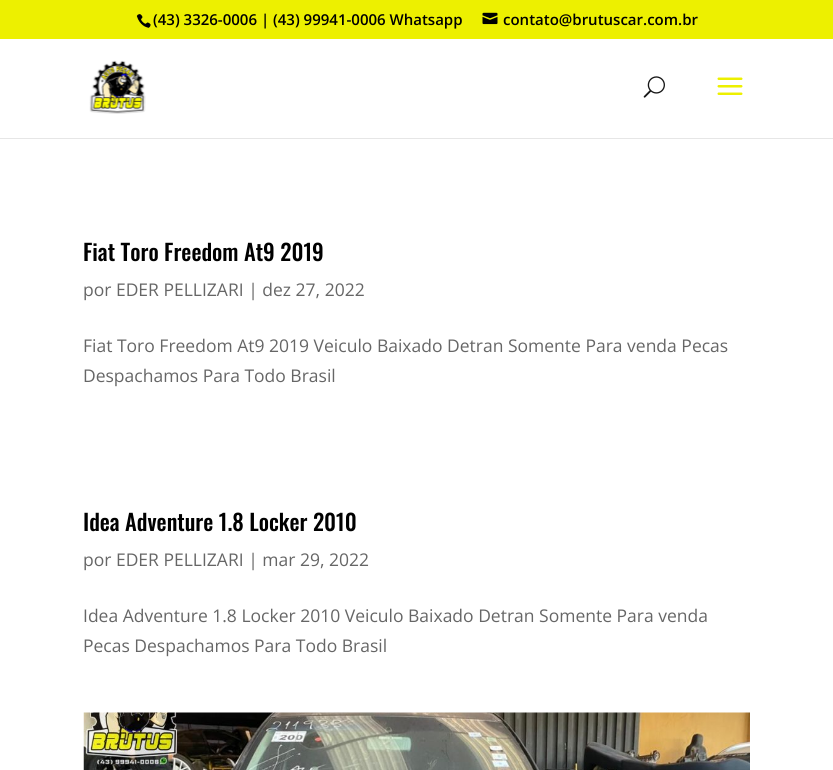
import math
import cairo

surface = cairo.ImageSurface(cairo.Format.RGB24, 833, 770)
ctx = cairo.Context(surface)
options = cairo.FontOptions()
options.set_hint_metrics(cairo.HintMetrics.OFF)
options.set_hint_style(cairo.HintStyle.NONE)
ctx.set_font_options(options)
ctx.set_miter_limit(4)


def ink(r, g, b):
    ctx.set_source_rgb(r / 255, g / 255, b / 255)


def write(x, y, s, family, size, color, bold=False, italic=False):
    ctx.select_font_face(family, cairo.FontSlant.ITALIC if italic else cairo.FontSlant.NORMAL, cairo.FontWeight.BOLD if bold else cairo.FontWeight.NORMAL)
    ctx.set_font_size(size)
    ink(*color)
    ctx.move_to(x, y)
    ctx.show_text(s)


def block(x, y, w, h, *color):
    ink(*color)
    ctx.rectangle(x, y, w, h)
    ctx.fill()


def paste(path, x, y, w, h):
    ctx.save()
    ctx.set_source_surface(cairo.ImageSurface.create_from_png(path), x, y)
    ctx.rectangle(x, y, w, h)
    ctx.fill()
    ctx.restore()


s1 = dict(family="Open Sans SemiBold", size=15, color=(0, 0, 0))
s2 = dict(family="Oswald Medium", size=22.5, color=(0, 0, 0))
s3 = dict(family="Open Sans", size=17.5, color=(102, 102, 102))

ink(255, 255, 255)
ctx.paint()
block(0, 0, 833, 39, 237, 240, 0)
paste("pic1.png", 136, 14, 15, 14)
write(153, 25, "(43) 3326-0006 | (43) 99941-0006 Whatsapp", **s1)
paste("pic2.png", 482, 12, 16, 13)
write(503, 25, "contato@brutuscar.com.br", **s1)
ink(230, 230, 230)
ctx.new_path()
ctx.move_to(0, 138)
ctx.line_to(0, 139)
ctx.line_to(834, 139)
ctx.line_to(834, 39)
ctx.line_to(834, 138)
ctx.close_path()
ctx.fill()
paste("pic3.png", 89, 60, 57, 54)
paste("pic4.png", 643, 76, 22, 22)
paste("pic5.png", 717, 77, 26, 18)
write(83, 261, "Fiat Toro Freedom At9 2019", **s2)
write(83, 296, "por EDER PELLIZARI | dez 27, 2022", **s3)
write(83, 352, "Fiat Toro Freedom At9 2019 Veiculo Baixado Detran Somente Para venda Pecas", **s3)
write(83, 382, "Despachamos Para Todo Brasil", **s3)
write(83, 531, "Idea Adventure 1.8 Locker 2010", **s2)
write(83, 566, "por EDER PELLIZARI | mar 29, 2022", **s3)
write(83, 622, "Idea Adventure 1.8 Locker 2010 Veiculo Baixado Detran Somente Para venda", **s3)
write(83, 652, "Pecas Despachamos Para Todo Brasil", **s3)
paste("pic6.png", 83, 712, 667, 58)
surface.write_to_png("screenshot.png")
